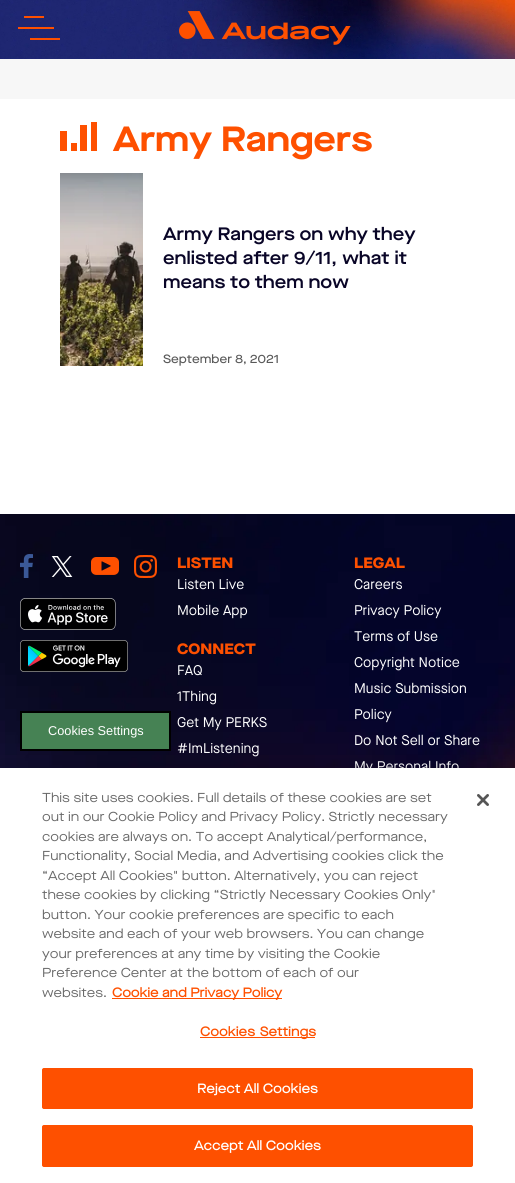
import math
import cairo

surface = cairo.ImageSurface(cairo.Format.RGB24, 515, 1183)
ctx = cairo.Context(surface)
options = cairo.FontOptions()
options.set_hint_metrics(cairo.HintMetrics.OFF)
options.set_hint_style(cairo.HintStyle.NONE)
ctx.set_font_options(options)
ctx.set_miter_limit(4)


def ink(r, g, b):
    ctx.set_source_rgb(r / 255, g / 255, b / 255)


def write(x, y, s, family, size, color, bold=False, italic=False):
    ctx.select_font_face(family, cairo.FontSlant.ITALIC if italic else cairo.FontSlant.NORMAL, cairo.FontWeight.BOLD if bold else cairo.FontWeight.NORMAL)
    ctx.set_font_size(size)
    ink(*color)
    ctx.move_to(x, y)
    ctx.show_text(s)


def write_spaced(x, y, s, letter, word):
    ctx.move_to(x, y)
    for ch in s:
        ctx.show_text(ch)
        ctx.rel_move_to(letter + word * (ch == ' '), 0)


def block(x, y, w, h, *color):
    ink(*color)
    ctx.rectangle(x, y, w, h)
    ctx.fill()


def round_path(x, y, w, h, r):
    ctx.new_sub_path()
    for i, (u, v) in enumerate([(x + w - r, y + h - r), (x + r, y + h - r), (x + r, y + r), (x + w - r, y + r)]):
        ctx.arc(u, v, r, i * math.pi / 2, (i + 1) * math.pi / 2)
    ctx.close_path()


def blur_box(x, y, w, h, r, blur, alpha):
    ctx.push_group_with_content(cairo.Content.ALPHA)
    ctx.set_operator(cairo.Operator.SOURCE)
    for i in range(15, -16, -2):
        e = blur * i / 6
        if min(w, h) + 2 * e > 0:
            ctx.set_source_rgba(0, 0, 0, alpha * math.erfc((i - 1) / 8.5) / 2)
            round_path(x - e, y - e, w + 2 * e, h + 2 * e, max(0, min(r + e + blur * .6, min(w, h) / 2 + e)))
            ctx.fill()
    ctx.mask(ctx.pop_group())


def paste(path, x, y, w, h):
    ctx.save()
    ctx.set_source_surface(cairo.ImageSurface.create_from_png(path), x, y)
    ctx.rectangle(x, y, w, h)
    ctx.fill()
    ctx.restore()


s1 = dict(family="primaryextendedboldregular", size=35, color=(254, 80, 0), bold=True)
s2 = dict(family="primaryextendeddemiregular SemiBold", size=18, color=(9, 5, 39))
s3 = dict(family="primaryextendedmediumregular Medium", size=12, color=(89, 89, 89))
s4 = dict(family="Liberation Sans", size=12.75, color=(255, 255, 255))
s5 = dict(family="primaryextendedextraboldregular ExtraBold", size=15, color=(254, 80, 0))
s6 = dict(family="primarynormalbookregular", size=14, color=(255, 255, 255))
s7 = dict(family="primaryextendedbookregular", size=13, color=(105, 105, 105))
s8 = dict(family="primaryextendedbookregular", size=13, color=(254, 80, 0), bold=True)

ink(255, 255, 255)
ctx.paint()
paste("pic1.png", 0, 0, 515, 59)
block(24, 16, 20, 2, 254, 80, 0)
block(18, 27, 36, 2, 254, 80, 0)
block(30, 38, 30, 2, 254, 80, 0)
paste("pic2.png", 179, 11, 172, 34)
block(0, 59, 515, 40, 247, 247, 247)
block(60, 131, 7, 20, 254, 80, 0)
block(71, 143, 6, 8, 254, 80, 0)
block(80, 125, 7, 26, 254, 80, 0)
block(91, 122, 6, 29, 254, 80, 0)
write(113, 151, "Army Rangers", **s1)
paste("pic3.png", 60, 173, 83, 193)
write(163, 240, "Army Rangers on why they", **s2)
write_spaced(163, 264, "enlisted after 9/11, what it", 0, 0.5)
write(163, 288, "means to them now", **s2)
write(163, 363, "September 8, 2021", **s3)
paste("pic4.png", 0, 514, 515, 254)
paste("pic5.png", 20, 554, 13, 24)
paste("pic6.png", 51, 556, 22, 21)
paste("pic7.png", 91, 557, 28, 18)
paste("pic8.png", 134, 555, 23, 23)
paste("pic9.png", 20, 598, 96, 32)
paste("pic10.png", 20, 640, 108, 32)
ink(70, 130, 84)
ctx.rectangle(21, 712, 149, 38)
ctx.fill_preserve()
ink(0, 0, 0)
ctx.stroke()
write(48, 735, "Cookies Settings", **s4)
write(177, 568, "LISTEN", **s5)
write(177, 589, "Listen Live", **s6)
write(177, 615, "Mobile App", **s6)
write(177, 654, "CONNECT", **s5)
write(177, 675, "FAQ", **s6)
write(177, 701, "1Thing", **s6)
write(177, 727, "Get My PERKS", **s6)
write(177, 753, "#ImListening", **s6)
write(354, 568, "LEGAL", **s5)
write(354, 589, "Careers", **s6)
write(354, 615, "Privacy Policy", **s6)
write(354, 641, "Terms of Use", **s6)
write(354, 667, "Copyright Notice", **s6)
write(354, 693, "Music Submission", **s6)
write(354, 719, "Policy", **s6)
write(354, 745, "Do Not Sell or Share", **s6)
write(354, 771, "My Personal Info", **s6)
ink(0, 0, 0)
blur_box(0, 768, 515, 415, 0, 9, 0.2)
block(0, 768, 515, 415, 255, 255, 255)
write(42, 802, "This site uses cookies. Full details of these cookies are set", **s7)
write(42, 821, "out in our Cookie Policy and Privacy Policy. Strictly necessary", **s7)
write(42, 841, "cookies are always on. To accept Analytical/performance,", **s7)
write(42, 860, "Functionality, Social Media, and Advertising cookies click the", **s7)
write(42, 880, "“Accept All Cookies\" button.", **s7)
write(234, 880, "Alternatively, you can reject", **s7)
write(42, 899, "these cookies by clicking “Strictly Necessary Cookies Only\"", **s7)
write(42, 919, "button. Your cookie preferences are specific to each", **s7)
write(42, 938, "website and each of your web browsers. You can change", **s7)
write(42, 958, "your preferences at any time by visiting the Cookie", **s7)
write(42, 977, "Preference Center at the bottom of each of our", **s7)
write(42, 997, "websites.", **s7)
block(112, 998, 170, 1, 254, 80, 0)
write(112, 997, "Cookie and Privacy Policy", **s8)
block(200, 1037, 115, 1, 254, 80, 0)
write_spaced(200, 1036, "Cookies Settings", 0.1, 1)
round_path(42.5, 1068.5, 430, 40, 1.5)
ctx.fill_preserve()
ctx.set_line_width(1)
ctx.stroke()
ink(255, 255, 255)
write_spaced(197, 1093, "Reject All Cookies", 0.1, 0)
ink(254, 80, 0)
round_path(42.5, 1125.5, 430, 41, 1.5)
ctx.fill_preserve()
ctx.stroke()
ink(255, 255, 255)
write_spaced(194, 1150, "Accept All Cookies", 0.1, 0)
paste("pic11.png", 477, 794, 12, 12)
surface.write_to_png("screenshot.png")
